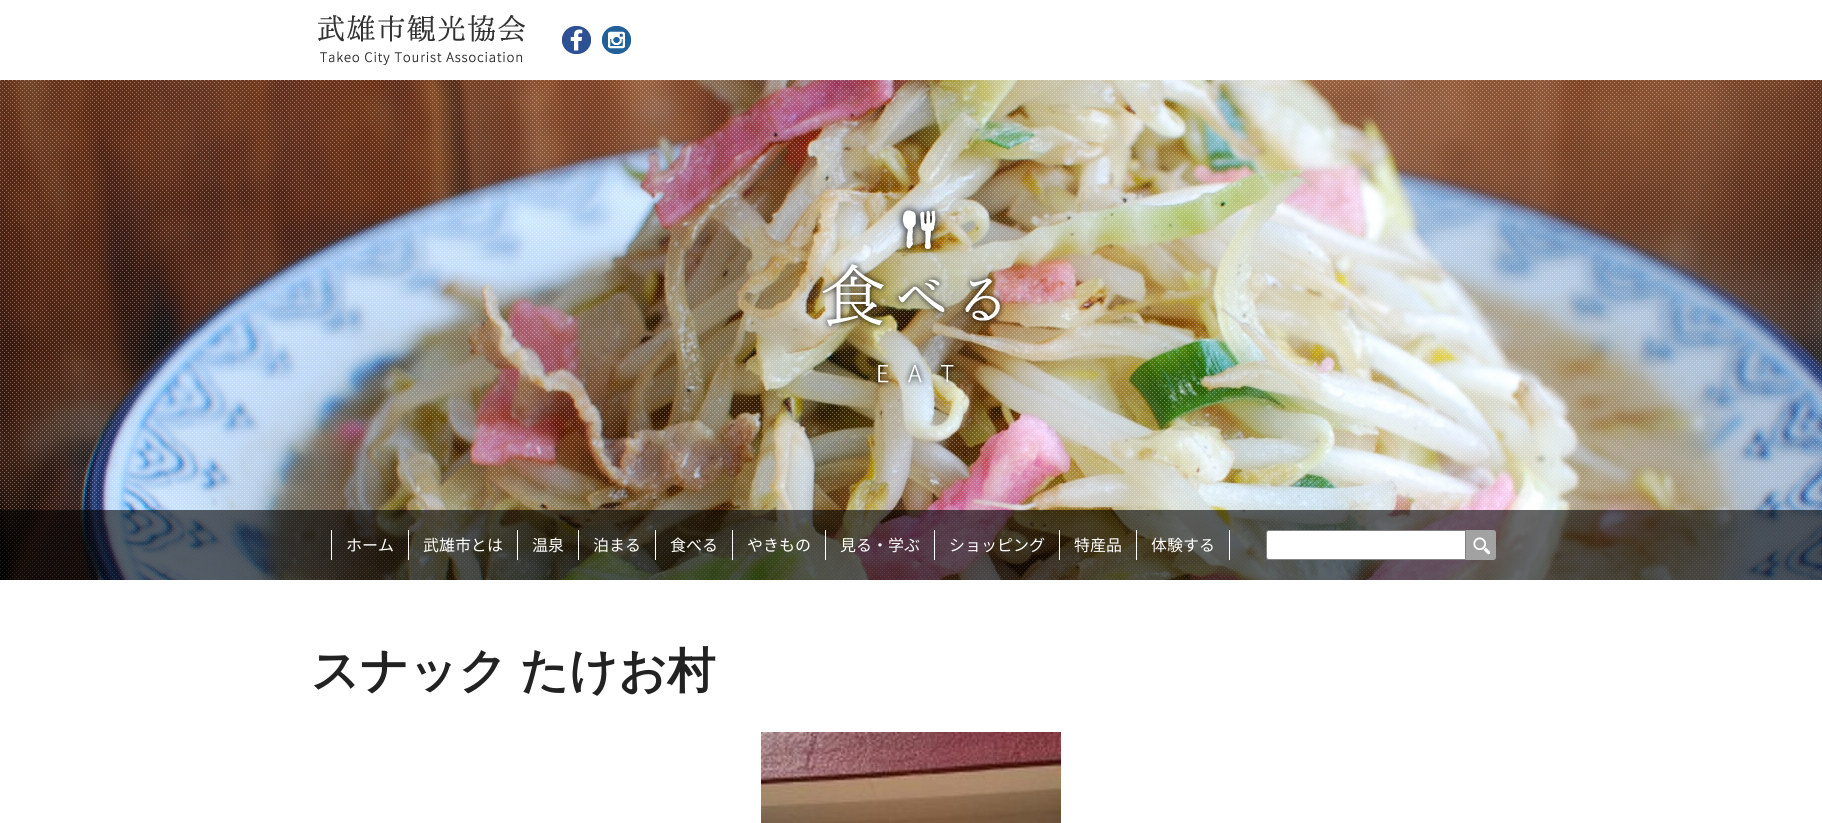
import math
import cairo

surface = cairo.ImageSurface(cairo.Format.RGB24, 1822, 823)
ctx = cairo.Context(surface)
options = cairo.FontOptions()
options.set_hint_metrics(cairo.HintMetrics.OFF)
options.set_hint_style(cairo.HintStyle.NONE)
ctx.set_font_options(options)
ctx.set_miter_limit(4)


def ink(r, g, b):
    ctx.set_source_rgb(r / 255, g / 255, b / 255)


def write(x, y, s, family, size, color, bold=False, italic=False):
    ctx.select_font_face(family, cairo.FontSlant.ITALIC if italic else cairo.FontSlant.NORMAL, cairo.FontWeight.BOLD if bold else cairo.FontWeight.NORMAL)
    ctx.set_font_size(size)
    ink(*color)
    ctx.move_to(x, y)
    ctx.show_text(s)


def write_spaced(x, y, s, letter, word):
    ctx.move_to(x, y)
    for ch in s:
        ctx.show_text(ch)
        ctx.rel_move_to(letter + word * (ch == ' '), 0)


def block(x, y, w, h, *color):
    ink(*color)
    ctx.rectangle(x, y, w, h)
    ctx.fill()


def paste(path, x, y, w, h):
    ctx.save()
    ctx.set_source_surface(cairo.ImageSurface.create_from_png(path), x, y)
    ctx.rectangle(x, y, w, h)
    ctx.fill()
    ctx.restore()


s1 = dict(family="Noto Sans JP", size=16, color=(255, 255, 255))

ink(255, 255, 255)
ctx.paint()
paste("pic1.png", 318, 15, 207, 50)
paste("pic2.png", 562, 26, 29, 28)
paste("pic3.png", 602, 26, 29, 28)
paste("pic5.png", 0, 80, 1822, 500)
paste("pic4.png", 0, 80, 1821, 499)
paste("pic6.png", 819, 203, 186, 185)
ctx.set_source_rgba(0, 0, 0, 0.6)
ctx.rectangle(0, 510, 1822, 70)
ctx.fill()
block(408, 530, 1, 30, 255, 255, 255)
block(331, 530, 1, 30, 255, 255, 255)
write(346, 551, "ホーム", **s1)
block(517, 530, 1, 30, 255, 255, 255)
write(423, 551, "武雄市とは", **s1)
block(578, 530, 1, 30, 255, 255, 255)
write(532, 551, "温泉", **s1)
block(655, 530, 1, 30, 255, 255, 255)
write(593, 551, "泊まる", **s1)
block(732, 530, 1, 30, 255, 255, 255)
write(670, 551, "食べる", **s1)
block(825, 530, 1, 30, 255, 255, 255)
write(747, 551, "やきもの", **s1)
block(934, 530, 1, 30, 255, 255, 255)
write(840, 551, "見る・学ぶ", **s1)
block(1059, 530, 1, 30, 255, 255, 255)
write(949, 551, "ショッピング", **s1)
block(1136, 530, 1, 30, 255, 255, 255)
write(1074, 551, "特産品", **s1)
block(1229, 530, 1, 30, 255, 255, 255)
write(1151, 551, "体験する", **s1)
ctx.new_path()
ctx.move_to(1269, 530.5)
ctx.line_to(1465.5, 530.5)
ctx.line_to(1465.5, 559.5)
ctx.line_to(1269, 559.5)
ctx.curve_to(1267.5, 559.5, 1266.5, 558.5, 1266.5, 557)
ctx.line_to(1266.5, 533)
ctx.curve_to(1266.5, 531.5, 1267.5, 530.5, 1269, 530.5)
ctx.close_path()
ctx.fill_preserve()
ink(130, 130, 130)
ctx.set_line_width(1)
ctx.stroke()
paste("pic7.png", 1466, 530, 30, 30)
ctx.select_font_face("WenQuanYi Zen Hei", cairo.FontSlant.NORMAL, cairo.FontWeight.BOLD)
ctx.set_font_size(48)
ink(34, 34, 34)
write_spaced(311, 687, "スナック たけお村", 0, -2)
paste("pic8.png", 761, 732, 300, 91)
surface.write_to_png("screenshot.png")
